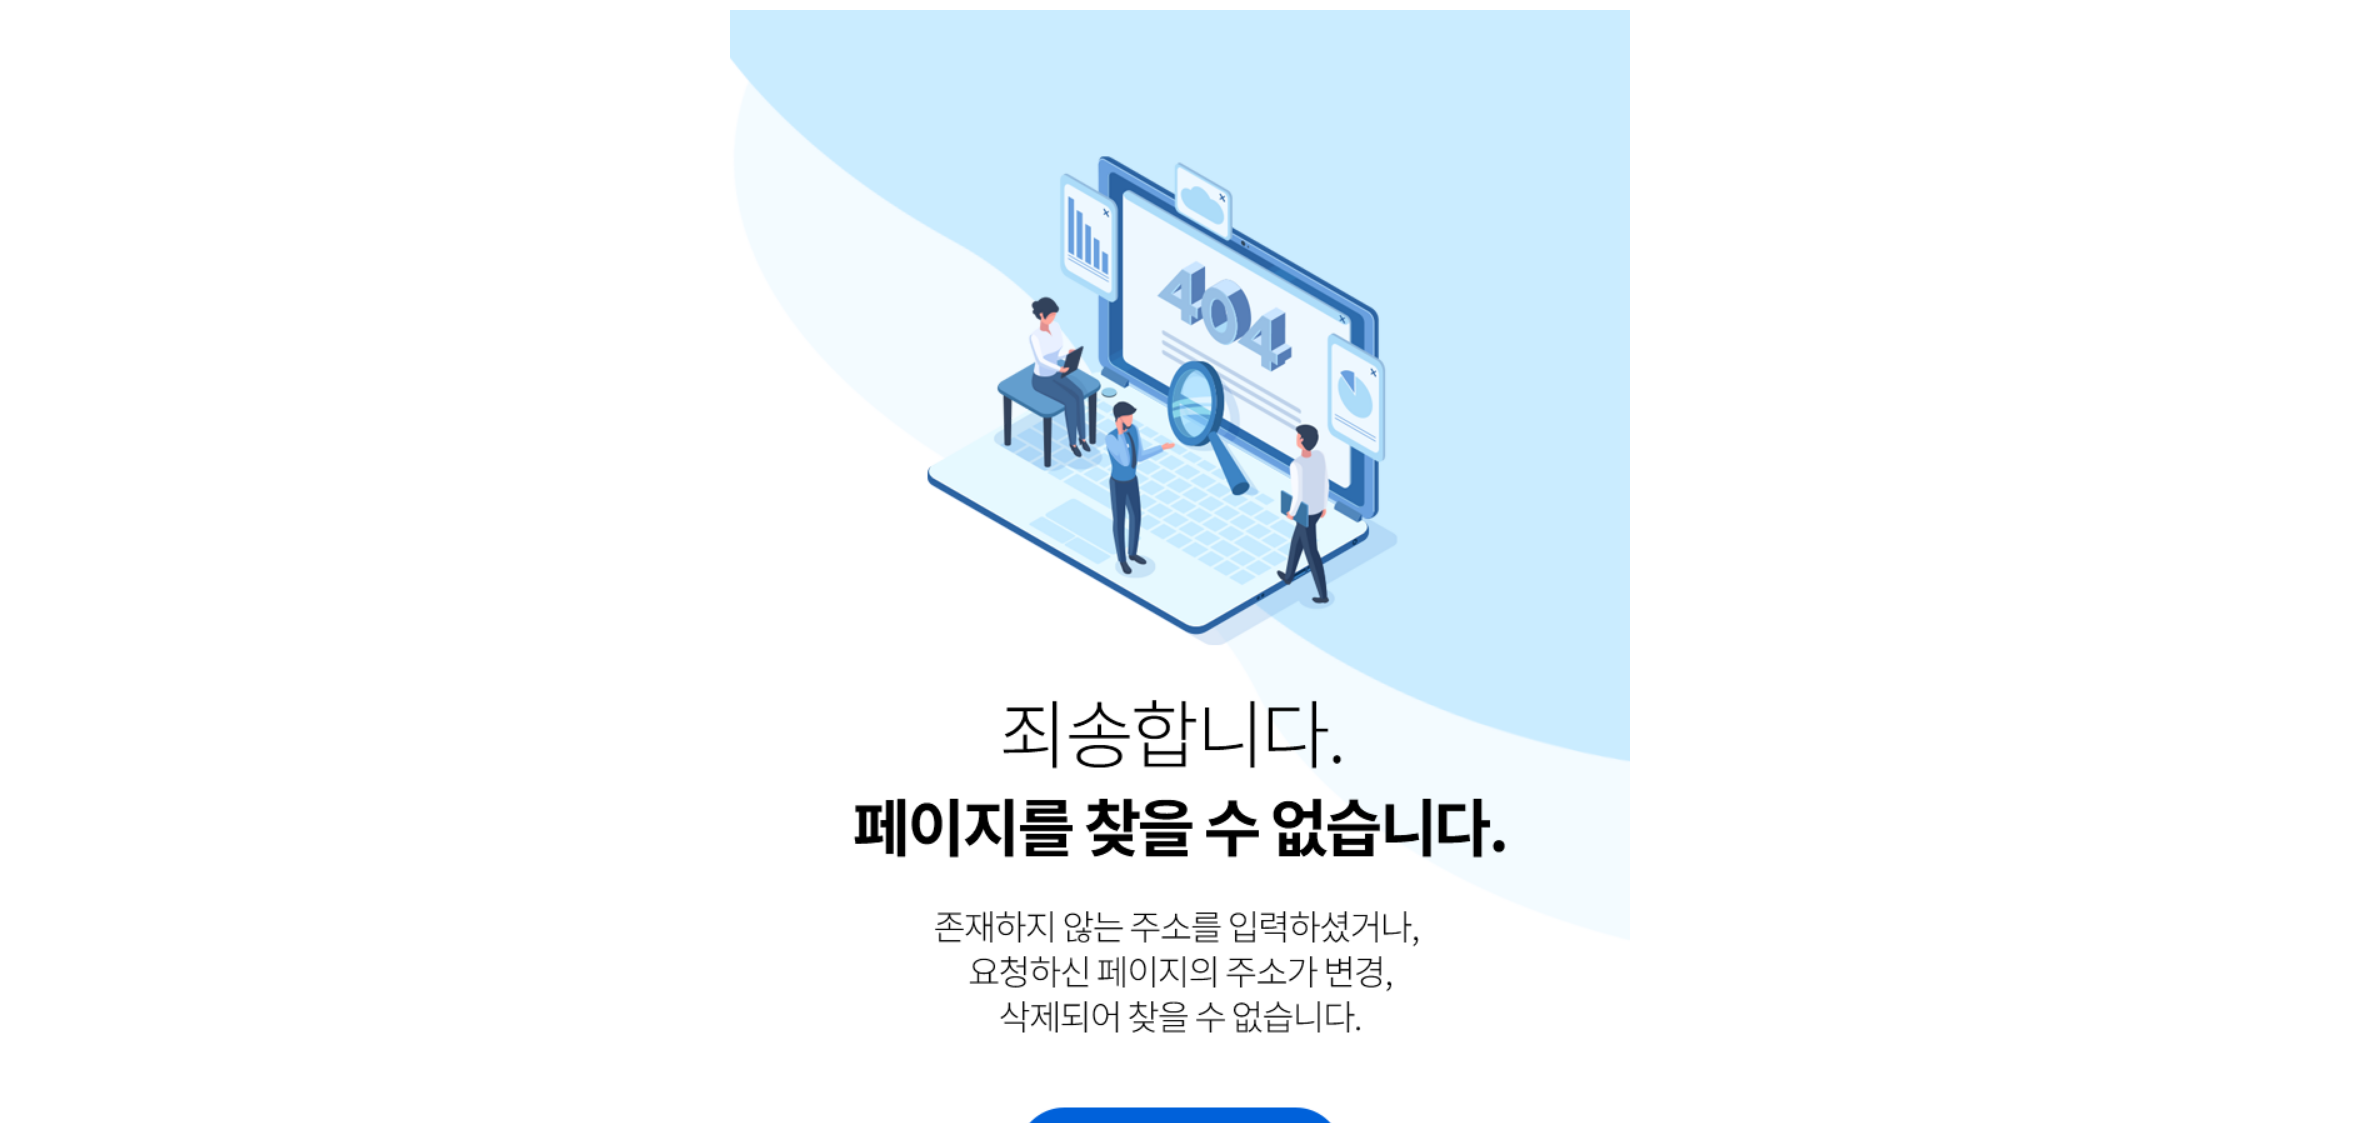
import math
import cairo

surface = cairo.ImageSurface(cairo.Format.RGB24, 2360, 1123)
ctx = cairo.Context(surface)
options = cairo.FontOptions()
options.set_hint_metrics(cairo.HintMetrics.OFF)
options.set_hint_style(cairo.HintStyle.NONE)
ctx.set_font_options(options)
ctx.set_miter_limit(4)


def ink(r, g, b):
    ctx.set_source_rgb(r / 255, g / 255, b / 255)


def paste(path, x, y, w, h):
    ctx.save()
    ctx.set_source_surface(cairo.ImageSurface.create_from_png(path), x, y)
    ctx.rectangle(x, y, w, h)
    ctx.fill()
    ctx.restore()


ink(255, 255, 255)
ctx.paint()
paste("pic1.png", 730, 10, 900, 1113)
surface.write_to_png("screenshot.png")
